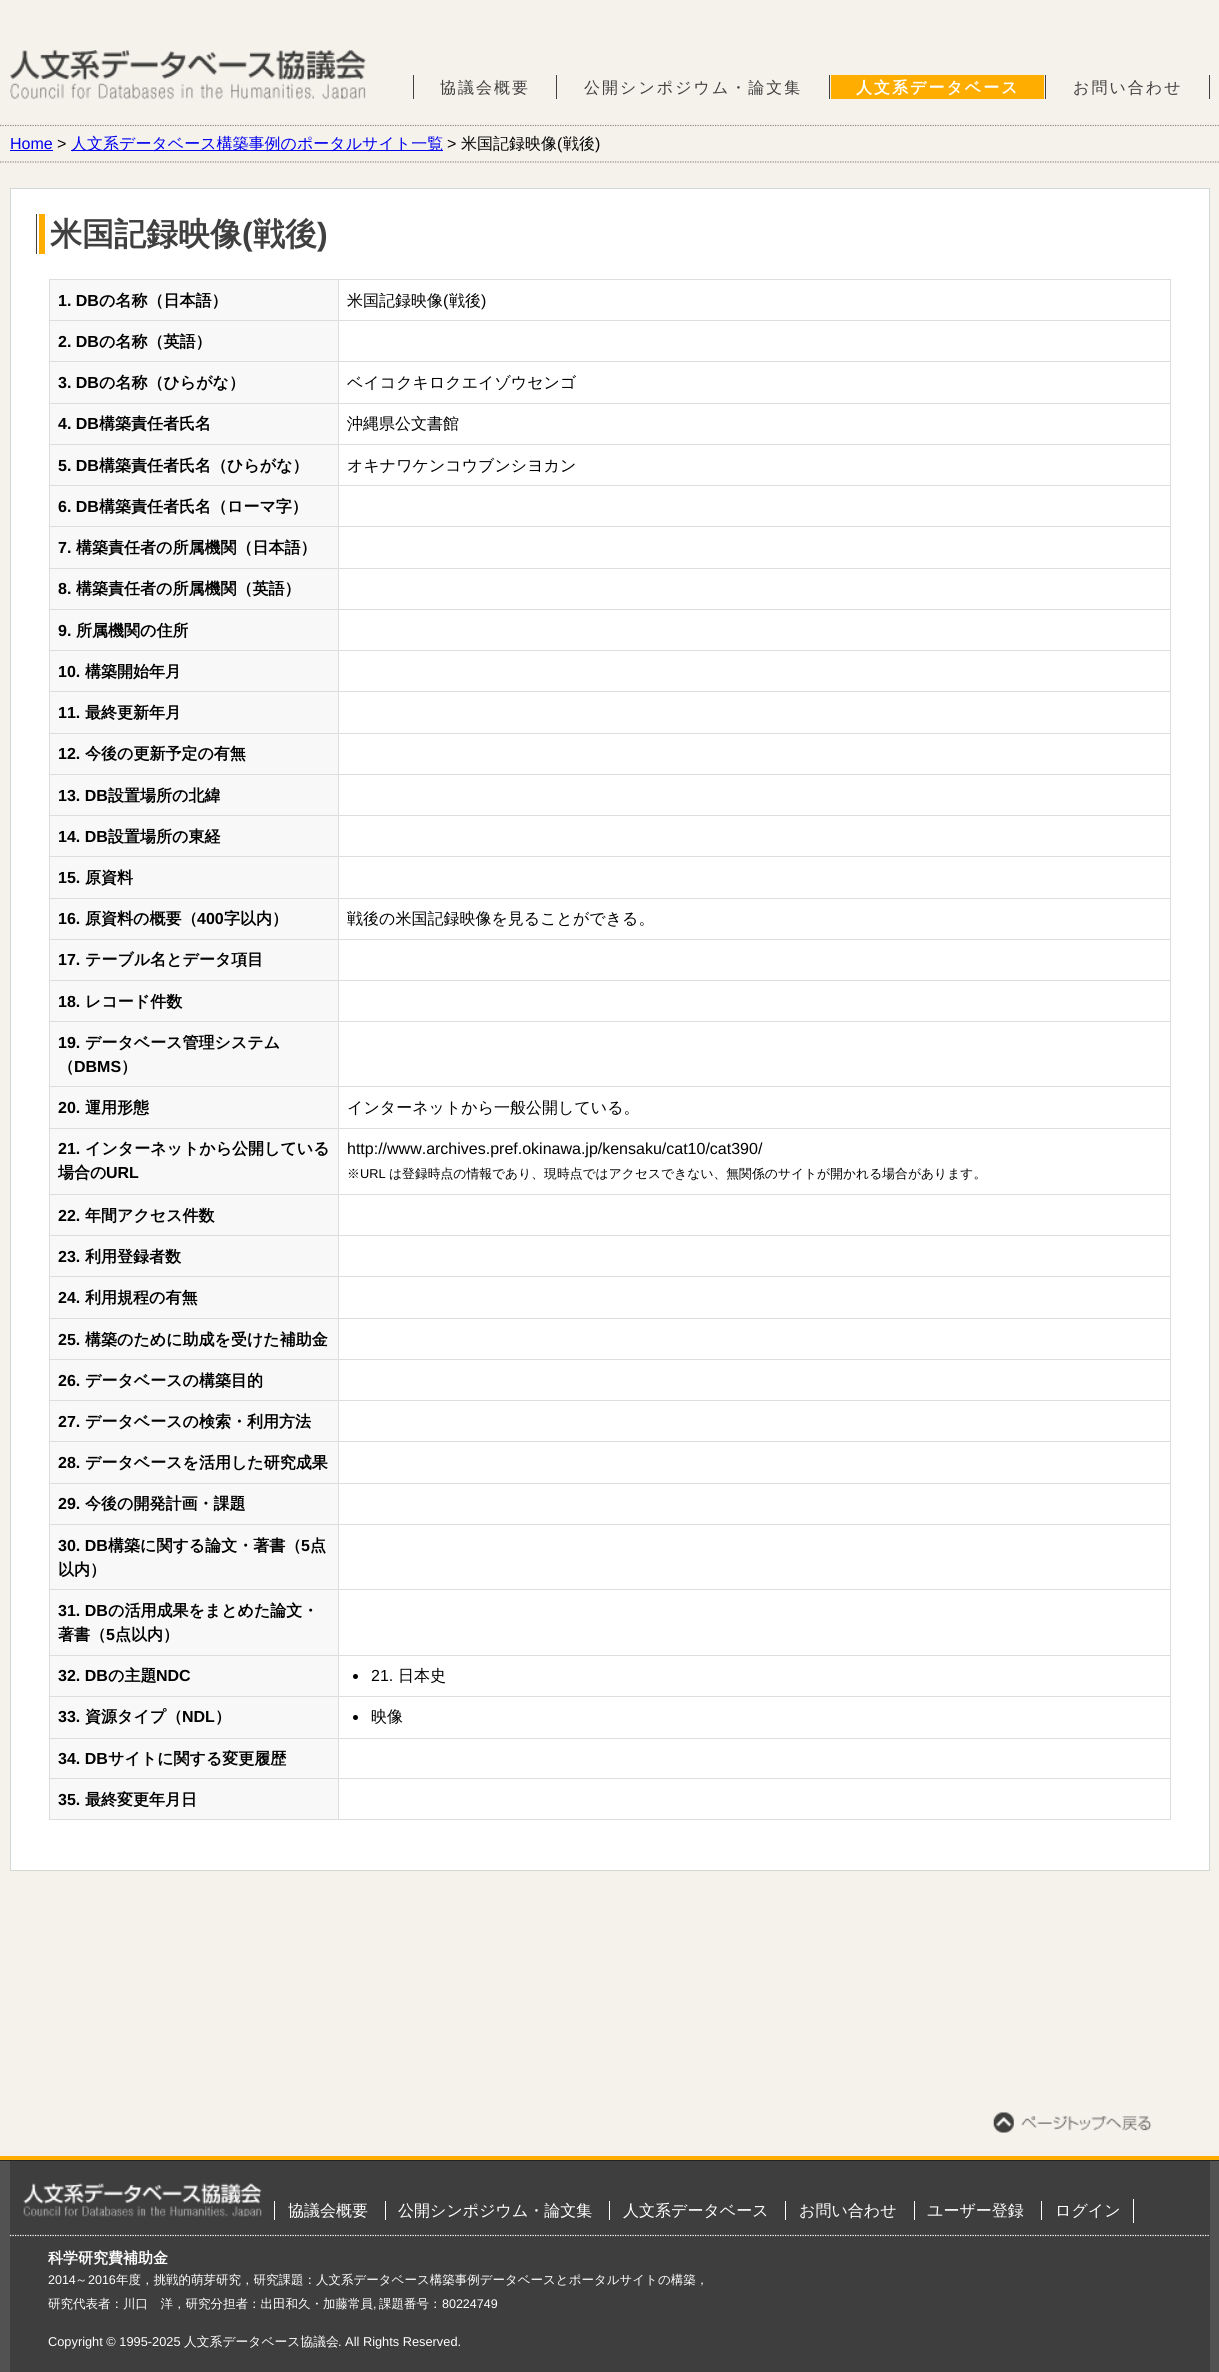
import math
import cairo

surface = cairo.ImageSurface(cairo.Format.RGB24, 1219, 2372)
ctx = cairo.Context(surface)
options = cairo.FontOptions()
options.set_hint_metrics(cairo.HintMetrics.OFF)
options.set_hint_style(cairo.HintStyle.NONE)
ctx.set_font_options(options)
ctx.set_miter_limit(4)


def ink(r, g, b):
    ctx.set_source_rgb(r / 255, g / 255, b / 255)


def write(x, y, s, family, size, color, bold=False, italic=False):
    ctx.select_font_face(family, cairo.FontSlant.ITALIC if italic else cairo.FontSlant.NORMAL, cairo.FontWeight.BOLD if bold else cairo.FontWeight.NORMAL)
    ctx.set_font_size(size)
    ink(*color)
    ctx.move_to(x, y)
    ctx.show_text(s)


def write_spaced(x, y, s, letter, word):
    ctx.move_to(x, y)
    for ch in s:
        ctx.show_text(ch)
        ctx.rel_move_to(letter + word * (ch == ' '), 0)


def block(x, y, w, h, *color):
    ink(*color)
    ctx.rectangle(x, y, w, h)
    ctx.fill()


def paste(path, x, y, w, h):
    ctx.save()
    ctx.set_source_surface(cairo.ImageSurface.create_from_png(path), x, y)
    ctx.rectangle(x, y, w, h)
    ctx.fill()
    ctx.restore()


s1 = dict(family="Liberation Sans", size=16, color=(0, 0, 238))
s2 = dict(family="Liberation Sans", size=16, color=(0, 0, 0))
s3 = dict(family="WenQuanYi Zen Hei Medium", size=16, color=(0, 0, 238))
s4 = dict(family="WenQuanYi Zen Hei Medium", size=16, color=(0, 0, 0))
s5 = dict(family="WenQuanYi Zen Hei", size=32, color=(64, 64, 64), bold=True)
s6 = dict(family="Liberation Sans", size=32, color=(64, 64, 64), bold=True)
s7 = dict(family="Liberation Sans", size=16, color=(0, 0, 0), bold=True)
s8 = dict(family="WenQuanYi Zen Hei", size=16, color=(0, 0, 0), bold=True)
s9 = dict(family="WenQuanYi Zen Hei Medium", size=12.8, color=(0, 0, 0))
s10 = dict(family="Liberation Sans", size=12.8, color=(0, 0, 0))
s11 = dict(family="WenQuanYi Zen Hei Medium", size=16, color=(255, 255, 255))
s12 = dict(family="WenQuanYi Zen Hei", size=15, color=(255, 255, 255), bold=True)
s13 = dict(family="Liberation Sans", size=12.5, color=(255, 255, 255))
s14 = dict(family="WenQuanYi Zen Hei Medium", size=12.5, color=(255, 255, 255))
s15 = dict(family="Liberation Sans", size=12.8, color=(255, 255, 255))
s16 = dict(family="WenQuanYi Zen Hei Medium", size=12.8, color=(255, 255, 255))

ink(245, 242, 236)
ctx.paint()
ctx.new_path()
ctx.move_to(0, 162)
ctx.line_to(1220, 162)
ink(149, 137, 129)
ctx.set_line_width(1.2)
ctx.set_dash([1.25, 1.25])
ctx.stroke()
paste("pic1.png", 10, 50, 356, 49)
block(413, 75, 1, 24, 64, 64, 64)
block(556, 75, 1, 24, 64, 64, 64)
ctx.select_font_face("WenQuanYi Zen Hei Medium")
ctx.set_font_size(16)
write_spaced(440, 93, "協議会概要", 2, 0)
block(829, 75, 1, 24, 64, 64, 64)
write_spaced(584, 93, "公開シンポジウム・論文集", 2, 0)
block(1045, 75, 1, 24, 64, 64, 64)
block(831, 75, 213, 24, 255, 174, 0)
ctx.select_font_face("WenQuanYi Zen Hei", cairo.FontSlant.NORMAL, cairo.FontWeight.BOLD)
ink(255, 255, 255)
write_spaced(856, 93, "人文系データベース", 2, 0)
block(1209, 75, 1, 24, 64, 64, 64)
ctx.select_font_face("WenQuanYi Zen Hei Medium")
write_spaced(1073, 93, "お問い合わせ", 2, 0)
ctx.new_path()
ctx.move_to(0, 125.5)
ctx.line_to(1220, 125.5)
ink(149, 137, 129)
ctx.stroke()
write(10, 149, "Home", **s1)
block(10, 150, 43, 1, 0, 0, 238)
write(57, 149, ">", **s2)
block(71, 150, 372, 1, 0, 0, 238)
write(71, 149, "人文系データベース構築事例のポータルサイト一覧", **s3)
write(447, 149, ">", **s2)
write(461, 149, "米国記録映像", **s4)
write(557, 149, "(", **s2)
write(563, 149, "戦後", **s4)
write(595, 149, ")", **s2)
ink(255, 255, 255)
ctx.rectangle(10.5, 188.5, 1199, 1682)
ctx.fill_preserve()
ink(208, 217, 214)
ctx.set_line_width(1)
ctx.set_dash([])
ctx.stroke()
block(36, 214, 1, 40, 64, 64, 64)
block(39, 214, 6, 40, 255, 174, 0)
write(50, 245, "米国記録映像", **s5)
write(242, 245, "(", **s6)
write(253, 245, "戦後", **s5)
write(317, 245, ")", **s6)
block(50, 280, 288, 40, 248, 248, 248)
block(338, 279, 833, 1, 221, 221, 221)
block(338, 320, 833, 1, 221, 221, 221)
block(50, 321, 288, 82, 248, 248, 248)
block(338, 361, 833, 1, 221, 221, 221)
block(338, 403, 833, 1, 221, 221, 221)
block(338, 444, 833, 1, 221, 221, 221)
block(338, 485, 833, 1, 221, 221, 221)
block(50, 486, 288, 82, 248, 248, 248)
block(338, 526, 833, 1, 221, 221, 221)
block(338, 568, 833, 1, 221, 221, 221)
block(338, 609, 833, 1, 221, 221, 221)
block(338, 650, 833, 1, 221, 221, 221)
block(50, 651, 288, 82, 248, 248, 248)
block(338, 691, 833, 1, 221, 221, 221)
block(338, 733, 833, 1, 221, 221, 221)
block(338, 774, 833, 1, 221, 221, 221)
block(338, 815, 833, 1, 221, 221, 221)
block(338, 856, 833, 1, 221, 221, 221)
block(338, 898, 833, 1, 221, 221, 221)
block(338, 939, 833, 1, 221, 221, 221)
block(338, 980, 833, 1, 221, 221, 221)
block(338, 1021, 833, 1, 221, 221, 221)
block(50, 1022, 288, 106, 248, 248, 248)
block(338, 1086, 833, 1, 221, 221, 221)
block(338, 1128, 833, 1, 221, 221, 221)
block(338, 1194, 833, 1, 221, 221, 221)
block(338, 1235, 833, 1, 221, 221, 221)
block(50, 1236, 288, 82, 248, 248, 248)
block(338, 1276, 833, 1, 221, 221, 221)
block(338, 1318, 833, 1, 221, 221, 221)
block(338, 1359, 833, 1, 221, 221, 221)
block(338, 1400, 833, 1, 221, 221, 221)
block(50, 1401, 288, 82, 248, 248, 248)
block(338, 1441, 833, 1, 221, 221, 221)
block(338, 1483, 833, 1, 221, 221, 221)
block(338, 1524, 833, 1, 221, 221, 221)
block(338, 1589, 833, 1, 221, 221, 221)
block(338, 1655, 833, 1, 221, 221, 221)
block(338, 1696, 833, 1, 221, 221, 221)
block(338, 1738, 833, 1, 221, 221, 221)
block(338, 1778, 833, 1, 221, 221, 221)
block(1170, 1778, 1, 42, 221, 221, 221)
block(338, 1819, 833, 1, 221, 221, 221)
block(338, 1778, 1, 42, 221, 221, 221)
block(49, 1778, 290, 1, 221, 221, 221)
block(338, 1738, 1, 41, 221, 221, 221)
block(49, 1738, 290, 1, 221, 221, 221)
block(338, 1696, 1, 43, 221, 221, 221)
block(49, 1696, 290, 1, 221, 221, 221)
block(338, 1655, 1, 43, 221, 221, 221)
block(49, 1655, 290, 1, 221, 221, 221)
block(338, 1589, 1, 67, 221, 221, 221)
block(49, 1589, 290, 1, 221, 221, 221)
block(338, 1524, 1, 66, 221, 221, 221)
block(49, 1524, 290, 1, 221, 221, 221)
block(338, 1483, 1, 42, 221, 221, 221)
block(49, 1483, 290, 1, 221, 221, 221)
block(338, 1441, 1, 43, 221, 221, 221)
block(49, 1441, 290, 1, 221, 221, 221)
block(338, 1400, 1, 43, 221, 221, 221)
block(49, 1400, 290, 1, 221, 221, 221)
block(338, 1359, 1, 42, 221, 221, 221)
block(49, 1359, 290, 1, 221, 221, 221)
block(338, 1318, 1, 42, 221, 221, 221)
block(49, 1318, 290, 1, 221, 221, 221)
block(338, 1276, 1, 43, 221, 221, 221)
block(49, 1276, 290, 1, 221, 221, 221)
block(338, 1235, 1, 43, 221, 221, 221)
block(49, 1235, 290, 1, 221, 221, 221)
block(338, 1194, 1, 42, 221, 221, 221)
block(49, 1194, 290, 1, 221, 221, 221)
block(338, 1128, 1, 67, 221, 221, 221)
block(49, 1128, 290, 1, 221, 221, 221)
block(338, 1086, 1, 43, 221, 221, 221)
block(49, 1086, 290, 1, 221, 221, 221)
block(338, 1021, 1, 67, 221, 221, 221)
block(49, 1021, 290, 1, 221, 221, 221)
block(338, 980, 1, 43, 221, 221, 221)
block(49, 980, 290, 1, 221, 221, 221)
block(338, 939, 1, 42, 221, 221, 221)
block(49, 939, 290, 1, 221, 221, 221)
block(338, 898, 1, 42, 221, 221, 221)
block(49, 898, 290, 1, 221, 221, 221)
block(338, 856, 1, 43, 221, 221, 221)
block(49, 856, 290, 1, 221, 221, 221)
block(338, 815, 1, 43, 221, 221, 221)
block(49, 815, 290, 1, 221, 221, 221)
block(338, 774, 1, 42, 221, 221, 221)
block(49, 774, 290, 1, 221, 221, 221)
block(338, 733, 1, 42, 221, 221, 221)
block(49, 733, 290, 1, 221, 221, 221)
block(338, 691, 1, 43, 221, 221, 221)
block(49, 691, 290, 1, 221, 221, 221)
block(338, 650, 1, 43, 221, 221, 221)
block(49, 650, 290, 1, 221, 221, 221)
block(338, 609, 1, 42, 221, 221, 221)
block(49, 609, 290, 1, 221, 221, 221)
block(338, 568, 1, 42, 221, 221, 221)
block(49, 568, 290, 1, 221, 221, 221)
block(338, 526, 1, 43, 221, 221, 221)
block(49, 526, 290, 1, 221, 221, 221)
block(338, 485, 1, 43, 221, 221, 221)
block(49, 485, 290, 1, 221, 221, 221)
block(338, 444, 1, 42, 221, 221, 221)
block(49, 444, 290, 1, 221, 221, 221)
block(338, 403, 1, 42, 221, 221, 221)
block(49, 403, 290, 1, 221, 221, 221)
block(338, 361, 1, 43, 221, 221, 221)
block(49, 361, 290, 1, 221, 221, 221)
block(338, 320, 1, 43, 221, 221, 221)
block(49, 320, 290, 1, 221, 221, 221)
block(338, 279, 1, 42, 221, 221, 221)
block(49, 279, 290, 1, 221, 221, 221)
block(49, 1819, 290, 1, 221, 221, 221)
block(49, 1778, 1, 42, 221, 221, 221)
block(49, 1738, 1, 41, 221, 221, 221)
block(49, 1696, 1, 43, 221, 221, 221)
block(49, 1655, 1, 43, 221, 221, 221)
block(49, 1589, 1, 67, 221, 221, 221)
block(49, 1524, 1, 66, 221, 221, 221)
block(49, 1483, 1, 42, 221, 221, 221)
block(49, 1441, 1, 43, 221, 221, 221)
block(49, 1400, 1, 43, 221, 221, 221)
block(49, 1359, 1, 42, 221, 221, 221)
block(49, 1318, 1, 42, 221, 221, 221)
block(49, 1276, 1, 43, 221, 221, 221)
block(49, 1235, 1, 43, 221, 221, 221)
block(49, 1194, 1, 42, 221, 221, 221)
block(49, 1128, 1, 67, 221, 221, 221)
block(49, 1086, 1, 43, 221, 221, 221)
block(49, 1021, 1, 67, 221, 221, 221)
block(49, 980, 1, 43, 221, 221, 221)
block(49, 939, 1, 42, 221, 221, 221)
block(49, 898, 1, 42, 221, 221, 221)
block(49, 856, 1, 43, 221, 221, 221)
block(49, 815, 1, 43, 221, 221, 221)
block(49, 774, 1, 42, 221, 221, 221)
block(49, 733, 1, 42, 221, 221, 221)
block(49, 691, 1, 43, 221, 221, 221)
block(49, 650, 1, 43, 221, 221, 221)
block(49, 609, 1, 42, 221, 221, 221)
block(49, 568, 1, 42, 221, 221, 221)
block(49, 526, 1, 43, 221, 221, 221)
block(49, 485, 1, 43, 221, 221, 221)
block(49, 444, 1, 42, 221, 221, 221)
block(49, 403, 1, 42, 221, 221, 221)
block(49, 361, 1, 43, 221, 221, 221)
block(49, 320, 1, 43, 221, 221, 221)
block(49, 279, 1, 42, 221, 221, 221)
write(58, 306, "1. DB", **s7)
write(99, 306, "の名称（日本語）", **s8)
block(1170, 1738, 1, 41, 221, 221, 221)
block(1170, 1696, 1, 43, 221, 221, 221)
block(1170, 1655, 1, 43, 221, 221, 221)
block(1170, 1589, 1, 67, 221, 221, 221)
block(1170, 1524, 1, 66, 221, 221, 221)
block(1170, 1483, 1, 42, 221, 221, 221)
block(1170, 1441, 1, 43, 221, 221, 221)
block(1170, 1400, 1, 43, 221, 221, 221)
block(1170, 1359, 1, 42, 221, 221, 221)
block(1170, 1318, 1, 42, 221, 221, 221)
block(1170, 1276, 1, 43, 221, 221, 221)
block(1170, 1235, 1, 43, 221, 221, 221)
block(1170, 1194, 1, 42, 221, 221, 221)
block(1170, 1128, 1, 67, 221, 221, 221)
block(1170, 1086, 1, 43, 221, 221, 221)
block(1170, 1021, 1, 67, 221, 221, 221)
block(1170, 980, 1, 43, 221, 221, 221)
block(1170, 939, 1, 42, 221, 221, 221)
block(1170, 898, 1, 42, 221, 221, 221)
block(1170, 856, 1, 43, 221, 221, 221)
block(1170, 815, 1, 43, 221, 221, 221)
block(1170, 774, 1, 42, 221, 221, 221)
block(1170, 733, 1, 42, 221, 221, 221)
block(1170, 691, 1, 43, 221, 221, 221)
block(1170, 650, 1, 43, 221, 221, 221)
block(1170, 609, 1, 42, 221, 221, 221)
block(1170, 568, 1, 42, 221, 221, 221)
block(1170, 526, 1, 43, 221, 221, 221)
block(1170, 485, 1, 43, 221, 221, 221)
block(1170, 444, 1, 42, 221, 221, 221)
block(1170, 403, 1, 42, 221, 221, 221)
block(1170, 361, 1, 43, 221, 221, 221)
block(1170, 320, 1, 43, 221, 221, 221)
block(1170, 279, 1, 42, 221, 221, 221)
write(347, 306, "米国記録映像", **s4)
write(443, 306, "(", **s2)
write(449, 306, "戦後", **s4)
write(481, 306, ")", **s2)
write(58, 347, "2. DB", **s7)
write(99, 347, "の名称（英語）", **s8)
write(58, 388, "3. DB", **s7)
write(99, 388, "の名称（ひらがな）", **s8)
write(347, 388, "ベイコクキロクエイゾウセンゴ", **s4)
block(50, 404, 288, 40, 248, 248, 248)
write(58, 429, "4. DB", **s7)
write(99, 429, "構築責任者氏名", **s8)
write(347, 429, "沖縄県公文書館", **s4)
block(50, 445, 288, 40, 248, 248, 248)
write(58, 471, "5. DB", **s7)
write(99, 471, "構築責任者氏名（ひらがな）", **s8)
write(347, 471, "オキナワケンコウブンシヨカン", **s4)
write(58, 512, "6. DB", **s7)
write(99, 512, "構築責任者氏名（ローマ字）", **s8)
write(58, 553, "7.", **s7)
write(76, 553, "構築責任者の所属機関（日本語）", **s8)
block(50, 569, 288, 40, 248, 248, 248)
write(58, 594, "8.", **s7)
write(76, 594, "構築責任者の所属機関（英語）", **s8)
block(50, 610, 288, 40, 248, 248, 248)
write(58, 636, "9.", **s7)
write(76, 636, "所属機関の住所", **s8)
write(58, 677, "10.", **s7)
write(85, 677, "構築開始年月", **s8)
write(58, 718, "11.", **s7)
write(85, 718, "最終更新年月", **s8)
block(50, 734, 288, 40, 248, 248, 248)
write(58, 759, "12.", **s7)
write(85, 759, "今後の更新予定の有無", **s8)
block(50, 775, 288, 40, 248, 248, 248)
write(58, 801, "13. DB", **s7)
write(108, 801, "設置場所の北緯", **s8)
block(50, 816, 288, 40, 248, 248, 248)
write(58, 842, "14. DB", **s7)
write(108, 842, "設置場所の東経", **s8)
block(50, 857, 288, 41, 248, 248, 248)
write(58, 883, "15.", **s7)
write(85, 883, "原資料", **s8)
block(50, 899, 288, 40, 248, 248, 248)
write(58, 924, "16.", **s7)
write(85, 924, "原資料の概要（", **s8)
write(197, 924, "400", **s7)
write(224, 924, "字以内）", **s8)
write(347, 924, "戦後の米国記録映像を見ることができる。", **s4)
block(50, 940, 288, 40, 248, 248, 248)
write(58, 965, "17.", **s7)
write(85, 965, "テーブル名とデータ項目", **s8)
block(50, 981, 288, 40, 248, 248, 248)
write(58, 1007, "18.", **s7)
write(85, 1007, "レコード件数", **s8)
write(58, 1048, "19.", **s7)
write(85, 1048, "データベース管理システム", **s8)
write(58, 1072, "（", **s8)
write(74, 1072, "DBMS", **s7)
write(121, 1072, "）", **s8)
write(58, 1113, "20.", **s7)
write(85, 1113, "運用形態", **s8)
write(347, 1113, "インターネットから一般公開している。", **s4)
block(50, 1129, 288, 65, 248, 248, 248)
write(58, 1154, "21.", **s7)
write(85, 1154, "インターネットから公開している", **s8)
write(58, 1178, "場合の", **s8)
write(106, 1178, "URL", **s7)
write(347, 1154, "http://www.archives.pref.okinawa.jp/kensaku/cat10/cat390/", **s2)
write(347, 1178, "※", **s9)
write(360, 1178, "URL", **s10)
write(389, 1178, "は登録時点の情報であり、現時点ではアクセスできない、無関係のサイトが開かれる場合があります。", **s9)
block(50, 1195, 288, 40, 248, 248, 248)
write(58, 1221, "22.", **s7)
write(85, 1221, "年間アクセス件数", **s8)
write(58, 1262, "23.", **s7)
write(85, 1262, "利用登録者数", **s8)
write(58, 1303, "24.", **s7)
write(85, 1303, "利用規程の有無", **s8)
block(50, 1319, 288, 40, 248, 248, 248)
write(58, 1345, "25.", **s7)
write(85, 1345, "構築のために助成を受けた補助金", **s8)
block(50, 1360, 288, 40, 248, 248, 248)
write(58, 1386, "26.", **s7)
write(85, 1386, "データベースの構築目的", **s8)
write(58, 1427, "27.", **s7)
write(85, 1427, "データベースの検索・利用方法", **s8)
write(58, 1468, "28.", **s7)
write(85, 1468, "データベースを活用した研究成果", **s8)
block(50, 1484, 288, 40, 248, 248, 248)
write(58, 1509, "29.", **s7)
write(85, 1509, "今後の開発計画・課題", **s8)
block(50, 1525, 288, 64, 248, 248, 248)
write(58, 1551, "30. DB", **s7)
write(108, 1551, "構築に関する論文・著書（", **s8)
write(301, 1551, "5", **s7)
write(310, 1551, "点", **s8)
write(58, 1575, "以内）", **s8)
block(50, 1590, 288, 65, 248, 248, 248)
write(58, 1616, "31. DB", **s7)
write(108, 1616, "の活用成果をまとめた論文・", **s8)
write(58, 1640, "著書（", **s8)
write(106, 1640, "5", **s7)
write(115, 1640, "点以内）", **s8)
block(50, 1656, 288, 40, 248, 248, 248)
write(58, 1681, "32. DB", **s7)
write(108, 1681, "の主題", **s8)
write(156, 1681, "NDC", **s7)
ctx.new_path()
ctx.arc(355.5, 1676.5, 2.5, 0, 2 * math.pi)
ctx.fill()
write(371, 1681, "21.", **s2)
write(398, 1681, "日本史", **s4)
block(50, 1697, 288, 41, 248, 248, 248)
write(58, 1722, "33.", **s7)
write(85, 1722, "資源タイプ（", **s8)
write(182, 1722, "NDL", **s7)
write(215, 1722, "）", **s8)
ctx.new_path()
ctx.arc(355.5, 1717.5, 2.5, 0, 2 * math.pi)
ctx.fill()
write(371, 1722, "映像", **s4)
block(50, 1739, 288, 39, 248, 248, 248)
write(58, 1764, "34. DB", **s7)
write(108, 1764, "サイトに関する変更履歴", **s8)
block(50, 1779, 288, 40, 248, 248, 248)
write(58, 1805, "35.", **s7)
write(85, 1805, "最終変更年月日", **s8)
block(0, 2161, 1219, 211, 82, 82, 82)
block(10, 2161, 1200, 211, 62, 62, 62)
block(0, 2156, 1219, 4, 255, 174, 0)
paste("pic2.png", 993, 2112, 159, 21)
block(0, 2160, 1219, 1, 34, 34, 34)
block(1133, 2199, 1, 24, 255, 255, 255)
paste("pic3.png", 23, 2183, 239, 34)
write(288, 2216, "協議会概要", **s11)
block(274, 2201, 1, 19, 255, 255, 255)
write(398, 2216, "公開シンポジウム・論文集", **s11)
block(385, 2201, 1, 19, 255, 255, 255)
write(623, 2216, "人文系データベース", **s11)
block(609, 2201, 1, 19, 255, 255, 255)
write(799, 2216, "お問い合わせ", **s11)
block(785, 2201, 1, 19, 255, 255, 255)
write(927, 2216, "ユーザー登録", **s11)
block(914, 2201, 1, 19, 255, 255, 255)
write(1055, 2216, "ログイン", **s11)
block(1041, 2201, 1, 19, 255, 255, 255)
ctx.new_path()
ctx.move_to(10, 2235.5)
ctx.line_to(1210, 2235.5)
ctx.set_line_width(1.2)
ctx.set_dash([1.25, 1.25])
ctx.stroke()
write(48, 2263, "科学研究費補助金", **s12)
write(48, 2284, "2014", **s13)
write(75, 2284, "～", **s14)
write(88, 2284, "2016", **s13)
write(116, 2284, "年度，挑戦的萌芽研究，研究課題：人文系データベース構築事例データベースとポータルサイトの構築，", **s14)
write(48, 2308, "研究代表者：川口　洋，研究分担者：出田和久・加藤常員", **s14)
write(373, 2308, ",", **s13)
write(379, 2308, "課題番号：", **s14)
write(442, 2308, "80224749", **s13)
write(48, 2346, "Copyright © 1995-2025", **s15)
write(184, 2346, "人文系データベース協議会", **s16)
write(338, 2346, ". All Rights Reserved.", **s15)
surface.write_to_png("screenshot.png")
